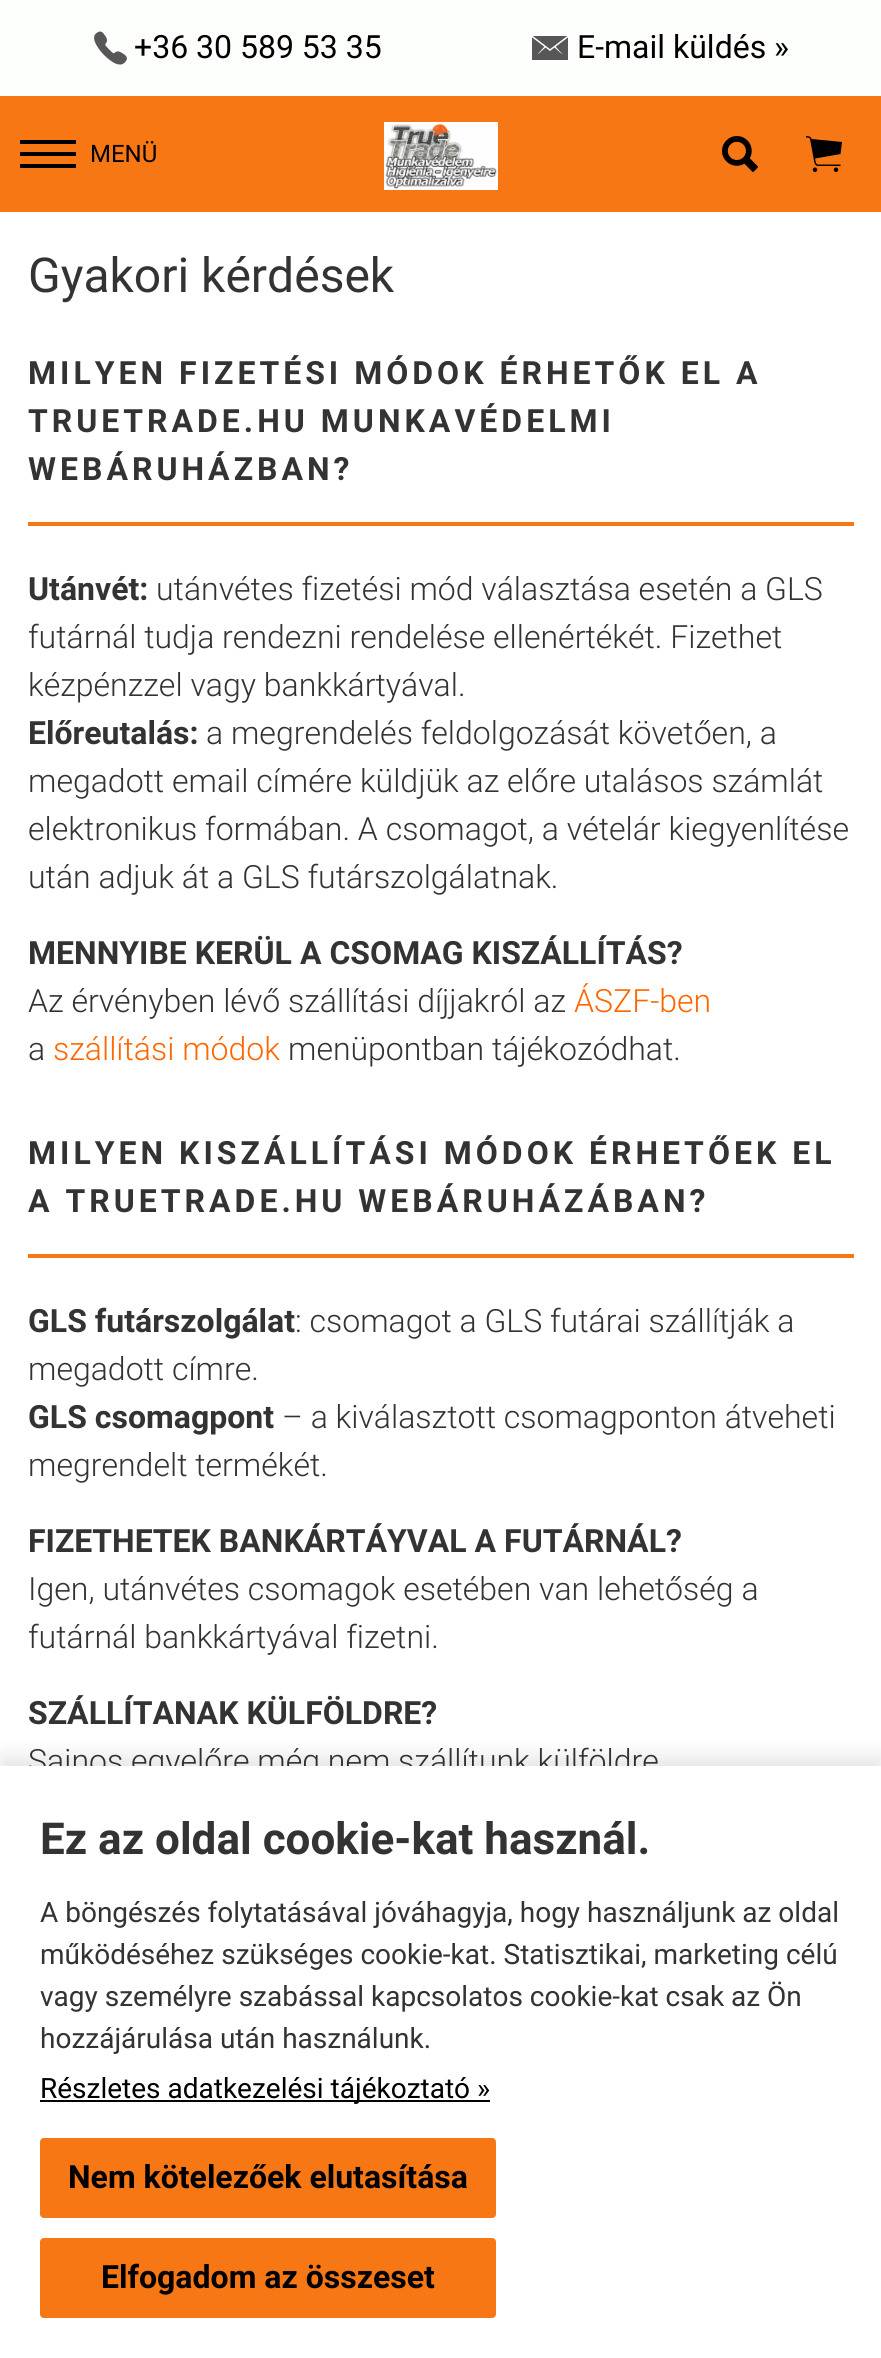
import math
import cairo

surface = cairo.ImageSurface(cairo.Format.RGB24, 881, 2358)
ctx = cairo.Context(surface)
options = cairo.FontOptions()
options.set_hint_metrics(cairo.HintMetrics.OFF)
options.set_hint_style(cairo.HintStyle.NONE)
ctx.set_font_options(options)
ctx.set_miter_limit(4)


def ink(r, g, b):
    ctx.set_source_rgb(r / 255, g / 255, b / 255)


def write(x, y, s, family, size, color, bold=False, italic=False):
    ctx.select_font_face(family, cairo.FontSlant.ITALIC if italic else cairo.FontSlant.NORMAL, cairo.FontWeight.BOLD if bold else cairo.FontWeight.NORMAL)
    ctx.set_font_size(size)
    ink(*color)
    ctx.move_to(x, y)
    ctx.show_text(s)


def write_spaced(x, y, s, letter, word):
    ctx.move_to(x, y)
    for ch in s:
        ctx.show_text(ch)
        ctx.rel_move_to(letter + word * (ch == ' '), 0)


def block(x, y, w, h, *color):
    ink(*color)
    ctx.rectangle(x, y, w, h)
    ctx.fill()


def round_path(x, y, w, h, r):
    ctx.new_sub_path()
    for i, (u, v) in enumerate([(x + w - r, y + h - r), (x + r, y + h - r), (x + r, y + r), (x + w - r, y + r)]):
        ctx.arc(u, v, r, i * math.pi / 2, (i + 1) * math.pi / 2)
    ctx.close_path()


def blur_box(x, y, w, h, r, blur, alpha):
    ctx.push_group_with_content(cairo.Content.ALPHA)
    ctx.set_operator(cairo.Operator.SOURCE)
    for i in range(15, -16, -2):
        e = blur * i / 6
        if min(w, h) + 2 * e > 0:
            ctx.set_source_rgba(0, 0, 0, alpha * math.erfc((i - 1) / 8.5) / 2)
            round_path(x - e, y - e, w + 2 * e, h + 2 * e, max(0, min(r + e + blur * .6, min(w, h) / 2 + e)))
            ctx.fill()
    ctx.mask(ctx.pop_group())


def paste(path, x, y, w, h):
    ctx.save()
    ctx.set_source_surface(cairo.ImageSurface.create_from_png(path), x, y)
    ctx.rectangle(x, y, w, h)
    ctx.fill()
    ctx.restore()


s1 = dict(family="Roboto", size=32, color=(0, 0, 0))
s2 = dict(family="Roboto", size=24, color=(0, 0, 0))
s3 = dict(family="Roboto", size=48, color=(51, 51, 51))
s4 = dict(family="Roboto", size=32, color=(51, 51, 51), bold=True)
s5 = dict(family="Roboto Light", size=32, color=(51, 51, 51))
s6 = dict(family="Roboto Light", size=32, color=(255, 102, 0))
s7 = dict(family="Roboto", size=44, color=(51, 51, 51), bold=True)
s8 = dict(family="Roboto", size=28, color=(51, 51, 51))
s9 = dict(family="Roboto", size=28, color=(0, 0, 0))
s10 = dict(family="Roboto", size=32, color=(0, 0, 0), bold=True)

ink(253, 255, 252)
ctx.paint()
paste("pic1.png", 94, 31, 33, 34)
write(134, 58, "+36 30 589 53 35", **s1)
paste("pic2.png", 532, 36, 36, 24)
write(577, 58, "E-mail küldés »", **s1)
block(0, 96, 881, 116, 247, 119, 20)
block(20, 140, 56, 4, 0, 0, 0)
block(20, 152, 56, 4, 0, 0, 0)
block(20, 164, 56, 4, 0, 0, 0)
write(90, 162, "MENÜ", **s2)
paste("pic3.png", 384, 122, 114, 68)
paste("pic4.png", 722, 136, 36, 36)
paste("pic5.png", 806, 136, 36, 36)
block(0, 212, 881, 1554, 255, 255, 255)
write(28, 292, "Gyakori kérdések", **s3)
block(28, 522, 826, 4, 247, 119, 20)
ctx.select_font_face("Roboto", cairo.FontSlant.NORMAL, cairo.FontWeight.BOLD)
ctx.set_font_size(32)
ink(51, 51, 51)
write_spaced(28, 384, "MILYEN FIZETÉSI MÓDOK ÉRHETŐK EL A", 4, 0)
write_spaced(28, 432, "TRUETRADE.HU MUNKAVÉDELMI", 4, 0)
write_spaced(28, 480, "WEBÁRUHÁZBAN?", 4, 0)
write(28, 600, "Utánvét:", **s4)
write(156, 600, "utánvétes fizetési mód választása esetén a GLS", **s5)
write(28, 648, "futárnál tudja rendezni rendelése ellenértékét. Fizethet", **s5)
write(28, 696, "kézpénzzel vagy bankkártyával.", **s5)
write(28, 744, "Előreutalás:", **s4)
write(206, 744, "a megrendelés feldolgozását követően, a", **s5)
write(28, 792, "megadott email címére küldjük az előre utalásos számlát", **s5)
write(28, 840, "elektronikus formában. A csomagot, a vételár kiegyenlítése", **s5)
write(28, 888, "után adjuk át a GLS futárszolgálatnak.", **s5)
write(28, 964, "MENNYIBE KERÜL A CSOMAG KISZÁLLÍTÁS?", **s4)
write(28, 1012, "Az érvényben lévő szállítási díjjakról az", **s5)
write(574, 1012, "ÁSZF-ben", **s6)
write(28, 1060, "a", **s5)
write(53, 1060, "szállítási módok", **s6)
write(288, 1060, "menüpontban tájékozódhat.", **s5)
block(28, 1254, 826, 4, 247, 119, 20)
ctx.select_font_face("Roboto", cairo.FontSlant.NORMAL, cairo.FontWeight.BOLD)
ink(51, 51, 51)
write_spaced(28, 1164, "MILYEN KISZÁLLÍTÁSI MÓDOK ÉRHETŐEK EL", 4, 0)
write_spaced(28, 1212, "A TRUETRADE.HU WEBÁRUHÁZÁBAN?", 4, 0)
write(28, 1332, "GLS futárszolgálat", **s4)
write(295, 1332, ": csomagot a GLS futárai szállítják a", **s5)
write(28, 1380, "megadott címre.", **s5)
write(28, 1428, "GLS csomagpont", **s4)
write(282, 1428, "– a kiválasztott csomagponton átveheti", **s5)
write(28, 1476, "megrendelt termékét.", **s5)
write(28, 1552, "FIZETHETEK BANKÁRTÁYVAL A FUTÁRNÁL?", **s4)
write(28, 1600, "Igen, utánvétes csomagok esetében van lehetőség a", **s5)
write(28, 1648, "futárnál bankkártyával fizetni.", **s5)
write(28, 1724, "SZÁLLÍTANAK KÜLFÖLDRE?", **s4)
write(28, 1772, "Sajnos egyelőre még nem szállítunk külföldre", **s5)
ink(0, 0, 0)
blur_box(0, 1756, 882, 592, 0, 10, 0.1)
block(0, 1766, 881, 592, 255, 255, 255)
write(40, 1854, "Ez az oldal cookie-kat használ.", **s7)
write(40, 1922, "A böngészés folytatásával jóváhagyja, hogy használjunk az oldal", **s8)
write(40, 1964, "működéséhez szükséges cookie-kat. Statisztikai, marketing célú", **s8)
write(40, 2006, "vagy személyre szabással kapcsolatos cookie-kat csak az Ön", **s8)
write(40, 2048, "hozzájárulása után használunk.", **s8)
block(40, 2100, 450, 2, 0, 0, 0)
write(40, 2098, "Részletes adatkezelési tájékoztató »", **s9)
ink(247, 119, 20)
round_path(40, 2138, 456, 80, 4)
ctx.fill()
write(68, 2188, "Nem kötelezőek elutasítása", **s10)
ink(247, 119, 20)
round_path(40, 2238, 456, 80, 4)
ctx.fill()
write(101, 2288, "Elfogadom az összeset", **s10)
surface.write_to_png("screenshot.png")
